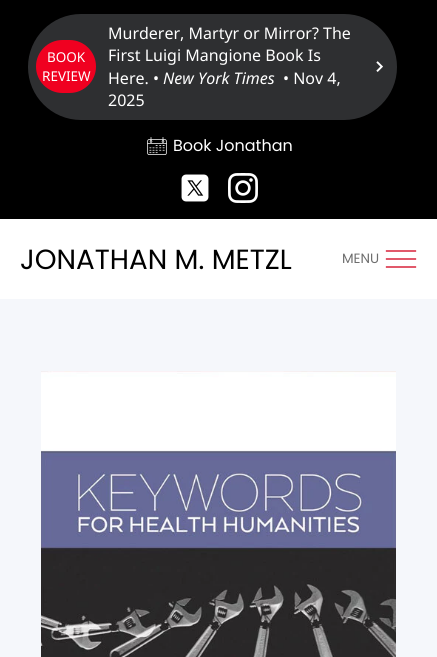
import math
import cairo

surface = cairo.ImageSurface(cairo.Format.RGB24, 437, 657)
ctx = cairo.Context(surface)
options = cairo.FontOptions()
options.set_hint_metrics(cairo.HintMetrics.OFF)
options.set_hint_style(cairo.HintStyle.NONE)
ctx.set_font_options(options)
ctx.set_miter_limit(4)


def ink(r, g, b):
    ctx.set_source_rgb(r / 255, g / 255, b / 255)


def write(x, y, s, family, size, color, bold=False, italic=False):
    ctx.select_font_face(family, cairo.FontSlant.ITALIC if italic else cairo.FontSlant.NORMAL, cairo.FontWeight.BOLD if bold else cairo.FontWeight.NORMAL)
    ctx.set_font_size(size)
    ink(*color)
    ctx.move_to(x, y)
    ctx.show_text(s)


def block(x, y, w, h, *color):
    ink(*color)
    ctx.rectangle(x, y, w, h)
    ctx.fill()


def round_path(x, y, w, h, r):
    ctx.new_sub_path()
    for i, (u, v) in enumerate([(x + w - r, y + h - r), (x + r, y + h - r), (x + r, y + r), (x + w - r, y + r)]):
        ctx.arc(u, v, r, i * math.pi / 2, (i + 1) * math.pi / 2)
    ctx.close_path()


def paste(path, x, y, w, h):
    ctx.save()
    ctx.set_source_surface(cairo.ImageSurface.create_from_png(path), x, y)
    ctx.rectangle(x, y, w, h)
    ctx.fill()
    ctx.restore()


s1 = dict(family="Noto Sans", size=13.5, color=(255, 255, 255))
s2 = dict(family="Noto Sans", size=16, color=(255, 255, 255))
s3 = dict(family="Noto Sans", size=16, color=(255, 255, 255), italic=True)
s4 = dict(family="Poppins", size=16, color=(255, 255, 255))
s5 = dict(family="Poppins", size=27.75, color=(0, 0, 0))
s6 = dict(family="Poppins", size=13.5, color=(110, 110, 110))

ink(255, 255, 255)
ctx.paint()
block(0, 0, 437, 219, 0, 0, 0)
ink(46, 47, 49)
round_path(28, 14, 369, 106, 53)
ctx.fill()
ink(240, 0, 32)
round_path(36, 40, 60, 53, 26.5)
ctx.fill()
write(47, 62, "BOOK", **s1)
write(42, 81, "REVIEW", **s1)
write(108, 39, "Murderer, Martyr or Mirror? The", **s2)
write(108, 61, "First Luigi Mangione Book Is", **s2)
write(108, 84, "Here. •", **s2)
write(163, 84, "New York Times", **s3)
write(283, 84, "• Nov 4,", **s2)
write(108, 106, "2025", **s2)
paste("pic1.png", 376, 61, 7, 11)
paste("pic2.png", 147, 137, 20, 18)
write(173, 151, "Book Jonathan", **s4)
paste("pic3.png", 181, 174, 28, 28)
paste("pic4.png", 228, 173, 30, 30)
write(20, 269, "JONATHAN M. METZL", **s5)
write(342, 263, "MENU", **s6)
ctx.new_path()
ctx.move_to(386.5, 251)
ctx.line_to(415.5, 251)
ctx.move_to(386.5, 259)
ctx.line_to(415.5, 259)
ctx.move_to(386.5, 267)
ctx.line_to(415.5, 267)
ink(209, 0, 28)
ctx.set_line_width(1.3)
ctx.set_line_cap(cairo.LineCap.SQUARE)
ctx.stroke()
block(0, 299, 437, 358, 245, 247, 251)
paste("pic5.png", 41, 371, 355, 286)
surface.write_to_png("screenshot.png")
